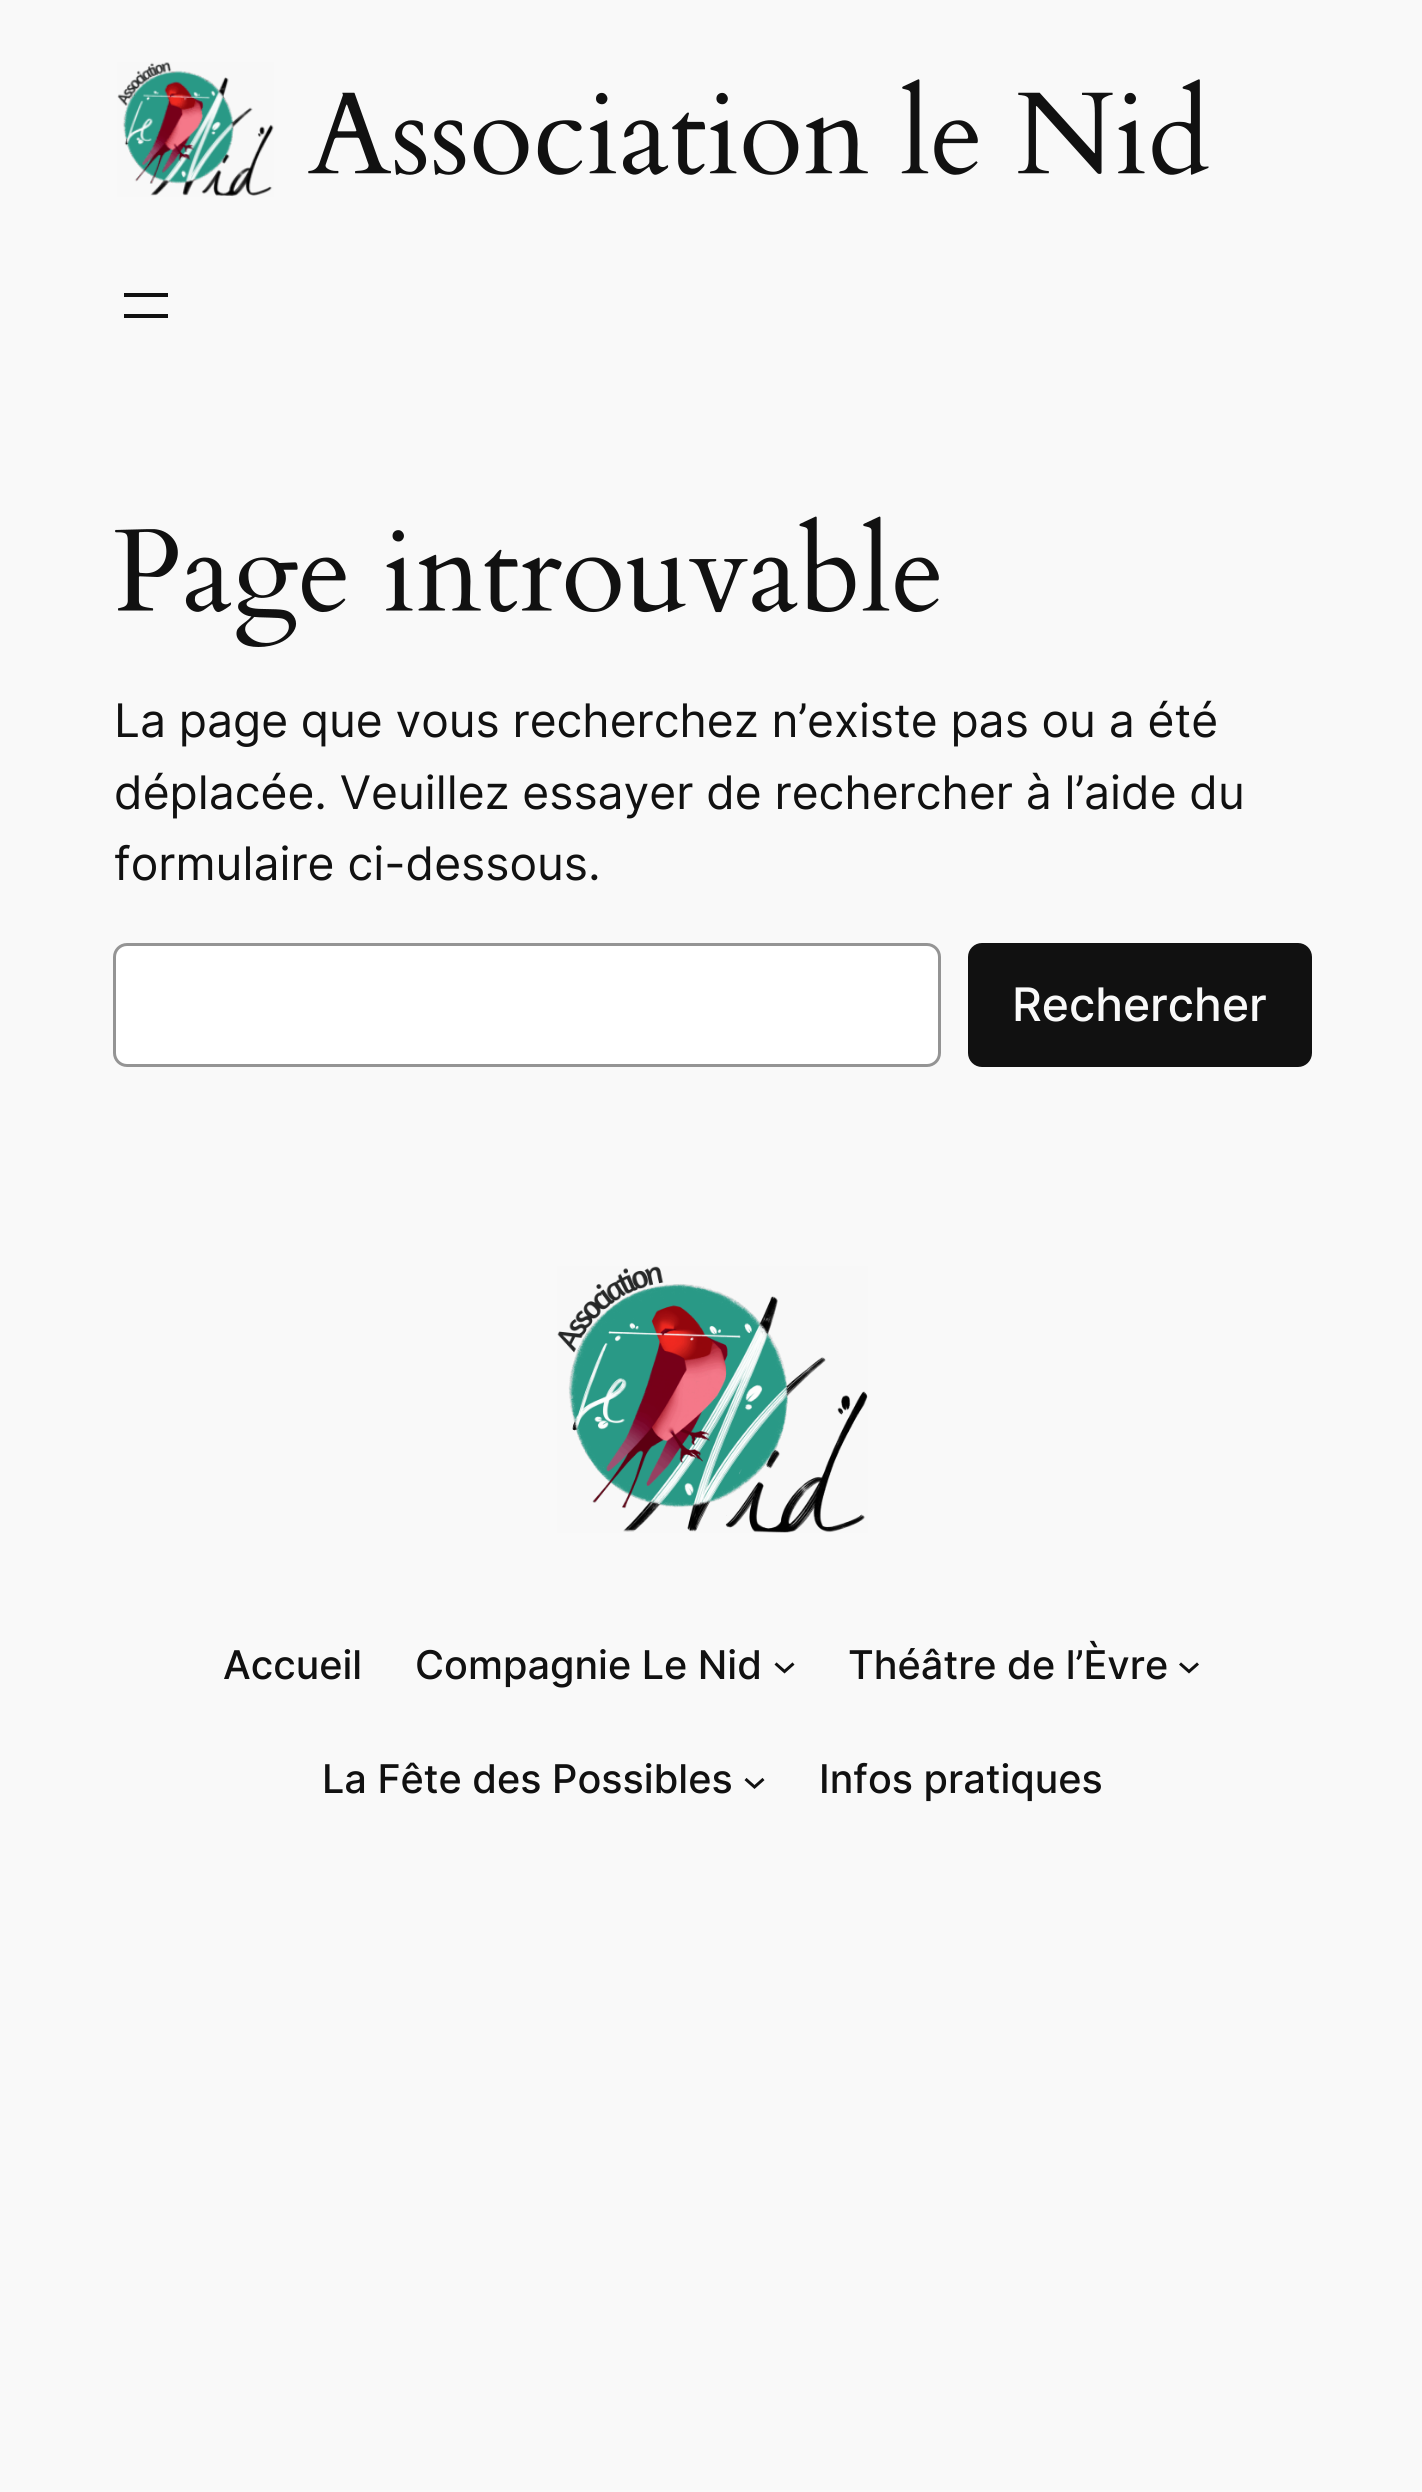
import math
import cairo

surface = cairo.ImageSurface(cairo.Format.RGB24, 1422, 2492)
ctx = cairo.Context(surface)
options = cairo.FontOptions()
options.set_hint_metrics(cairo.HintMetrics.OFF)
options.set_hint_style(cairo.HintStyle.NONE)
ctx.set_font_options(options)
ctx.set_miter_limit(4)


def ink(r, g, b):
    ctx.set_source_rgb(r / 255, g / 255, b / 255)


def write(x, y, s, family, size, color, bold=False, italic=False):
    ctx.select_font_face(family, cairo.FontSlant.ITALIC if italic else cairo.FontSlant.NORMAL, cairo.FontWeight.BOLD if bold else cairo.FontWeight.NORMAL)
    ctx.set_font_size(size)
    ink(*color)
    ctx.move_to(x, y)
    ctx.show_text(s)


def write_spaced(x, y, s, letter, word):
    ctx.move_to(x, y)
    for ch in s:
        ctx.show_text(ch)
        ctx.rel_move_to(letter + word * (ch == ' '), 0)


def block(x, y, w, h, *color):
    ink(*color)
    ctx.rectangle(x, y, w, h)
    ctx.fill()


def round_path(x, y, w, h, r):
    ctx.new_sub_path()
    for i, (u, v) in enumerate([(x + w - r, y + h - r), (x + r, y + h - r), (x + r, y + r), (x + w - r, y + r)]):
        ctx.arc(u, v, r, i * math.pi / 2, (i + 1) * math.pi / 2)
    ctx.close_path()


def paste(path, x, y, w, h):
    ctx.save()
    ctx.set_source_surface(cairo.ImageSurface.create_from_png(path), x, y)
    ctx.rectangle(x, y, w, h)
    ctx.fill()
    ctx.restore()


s1 = dict(family="Inter", size=46.2, color=(17, 17, 17))
s2 = dict(family="Inter Medium", size=46.2, color=(249, 249, 249))
s3 = dict(family="Inter Medium", size=39.6, color=(17, 17, 17))

ink(249, 249, 249)
ctx.paint()
paste("pic1.png", 117, 62, 157, 135)
paste("pic2.png", 308, 79, 901, 96)
block(124, 293, 44, 4, 17, 17, 17)
block(124, 314, 44, 4, 17, 17, 17)
paste("pic3.png", 115, 516, 824, 131)
ctx.select_font_face("Inter")
ctx.set_font_size(46.2)
write_spaced(114, 737, "La page que vous recherchez n’existe pas ou a été", 0, -0.25)
write_spaced(114, 809, "déplacée. Veuillez essayer de rechercher à l’aide du", 0, -0.25)
write(114, 880, "formulaire ci-dessous.", **s1)
ink(255, 255, 255)
round_path(114.5, 944.5, 825, 121, 12.5)
ctx.fill_preserve()
ink(148, 148, 148)
ctx.set_line_width(3)
ctx.stroke()
ink(17, 17, 17)
round_path(968, 943, 344, 124, 14)
ctx.fill()
write(1012, 1021, "Rechercher", **s2)
paste("pic4.png", 557, 1266, 311, 267)
write(223, 1679, "Accueil", **s3)
write(415, 1679, "Compagnie Le Nid", **s3)
ctx.new_path()
ctx.move_to(775.5, 1663.5)
ctx.line_to(784.5, 1671.5)
ctx.line_to(793.5, 1663.5)
ctx.stroke()
write(848, 1679, "Théâtre de l’Èvre", **s3)
ctx.new_path()
ctx.move_to(1180, 1663.5)
ctx.line_to(1189, 1671.5)
ctx.line_to(1198, 1663.5)
ctx.stroke()
write(322, 1793, "La Fête des Possibles", **s3)
ctx.new_path()
ctx.move_to(745.5, 1779)
ctx.line_to(754.5, 1787)
ctx.line_to(763.5, 1779)
ctx.stroke()
write(819, 1793, "Infos pratiques", **s3)
surface.write_to_png("screenshot.png")
